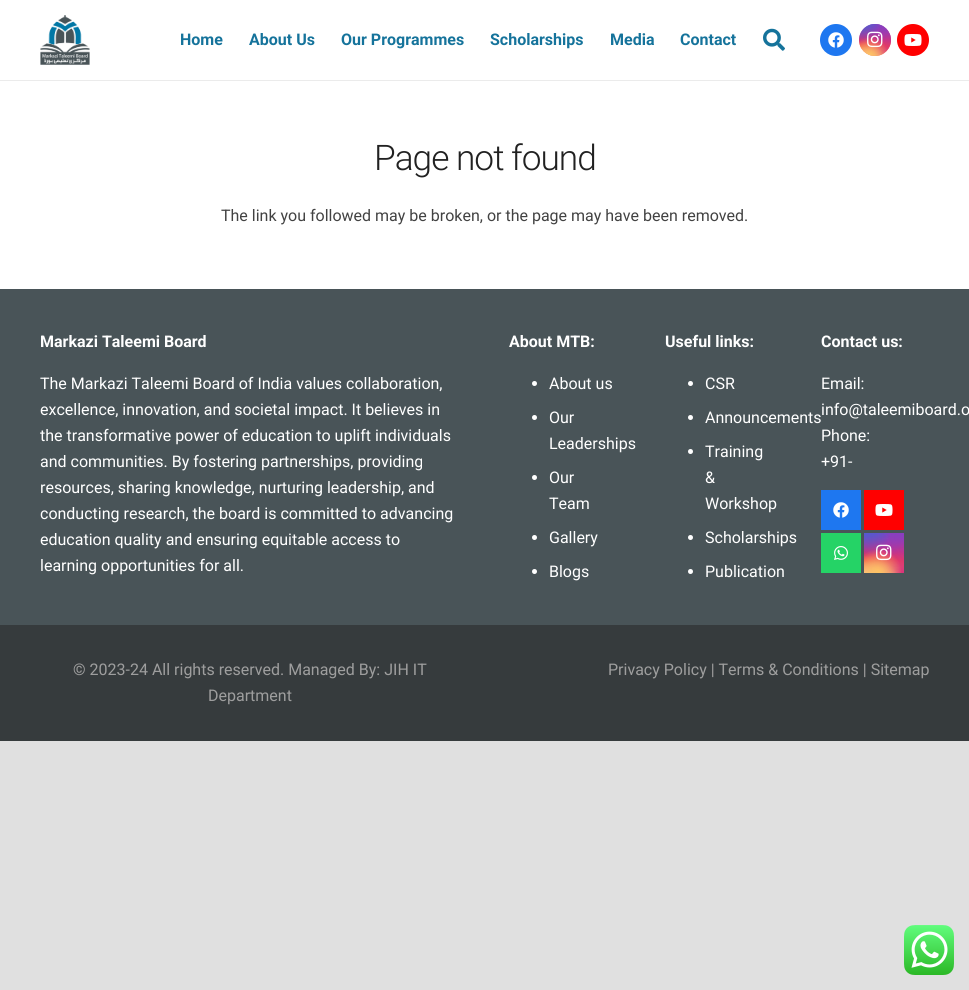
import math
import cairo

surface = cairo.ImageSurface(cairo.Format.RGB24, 969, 990)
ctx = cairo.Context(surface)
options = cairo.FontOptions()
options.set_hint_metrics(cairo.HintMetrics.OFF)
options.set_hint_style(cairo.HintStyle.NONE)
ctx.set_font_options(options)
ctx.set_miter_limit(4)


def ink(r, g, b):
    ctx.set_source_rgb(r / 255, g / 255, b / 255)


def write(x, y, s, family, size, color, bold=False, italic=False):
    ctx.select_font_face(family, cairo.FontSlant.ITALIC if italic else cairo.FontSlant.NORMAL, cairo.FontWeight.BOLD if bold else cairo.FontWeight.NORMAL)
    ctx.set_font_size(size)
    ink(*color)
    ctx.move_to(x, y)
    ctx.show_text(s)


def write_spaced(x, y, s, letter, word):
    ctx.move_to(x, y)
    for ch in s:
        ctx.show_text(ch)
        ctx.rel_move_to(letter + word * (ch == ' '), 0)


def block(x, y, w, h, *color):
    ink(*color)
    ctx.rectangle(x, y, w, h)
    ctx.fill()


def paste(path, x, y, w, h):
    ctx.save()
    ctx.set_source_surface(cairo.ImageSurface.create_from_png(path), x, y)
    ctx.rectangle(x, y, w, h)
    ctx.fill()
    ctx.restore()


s1 = dict(family="Roboto", size=16, color=(21, 115, 155), bold=True)
s2 = dict(family="Roboto", size=16, color=(66, 66, 66))
s3 = dict(family="Roboto", size=16, color=(255, 255, 255), bold=True)
s4 = dict(family="Roboto", size=16, color=(255, 255, 255))
s5 = dict(family="Roboto", size=16, color=(158, 158, 158))

ink(224, 224, 224)
ctx.paint()
block(0, 0, 969, 289, 255, 255, 255)
block(0, 80, 969, 1, 235, 235, 235)
paste("pic1.png", 40, 15, 50, 50)
write(180, 45, "Home", **s1)
write(249, 45, "About Us", **s1)
write(341, 45, "Our Programmes", **s1)
write(490, 45, "Scholarships", **s1)
write(610, 45, "Media", **s1)
write(680, 45, "Contact", **s1)
paste("pic2.png", 763, 28, 22, 23)
ink(30, 119, 240)
ctx.arc(836, 40, 16, 0, 2 * math.pi)
ctx.fill()
paste("pic3.png", 828, 32, 16, 16)
gradient = cairo.LinearGradient(875, 24, 875, 56)
gradient.add_color_stop_rgba(0, 0.396, 0.349, 0.792, 1)
gradient.add_color_stop_rgba(0.3, 0.737, 0.192, 0.561, 1)
gradient.add_color_stop_rgba(0.5, 0.894, 0.18, 0.4, 1)
gradient.add_color_stop_rgba(0.7, 0.98, 0.325, 0.196, 1)
gradient.add_color_stop_rgba(1, 1, 0.863, 0.502, 1)
ctx.set_source(gradient)
ctx.arc(875, 40, 16, 0, 2 * math.pi)
ctx.fill()
gradient = cairo.RadialGradient(891, 56, 0, 891, 56, 45)
gradient.add_color_stop_rgba(0, 0.851, 0.192, 0.478, 1)
gradient.add_color_stop_rgba(1, 0.851, 0.192, 0.478, 0)
ctx.set_source(gradient)
ctx.arc(875, 40, 16, 0, 2 * math.pi)
ctx.fill()
gradient = cairo.RadialGradient(0, 0, 0, 0, 0, 1)
gradient.set_matrix(cairo.Matrix(1 / 27, 0, 0, 1 / 54, -1 * 878 / 27, -1 * 18 / 54))
gradient.add_color_stop_rgba(0, 0.537, 0.239, 0.761, 1)
gradient.add_color_stop_rgba(0.5, 0.537, 0.239, 0.761, 0)
ctx.set_source(gradient)
ctx.arc(875, 40, 16, 0, 2 * math.pi)
ctx.fill()
gradient = cairo.RadialGradient(891, 24, 0, 891, 24, 45)
gradient.add_color_stop_rgba(0, 0.537, 0.239, 0.761, 1)
gradient.add_color_stop_rgba(0.5, 0.537, 0.239, 0.761, 0)
ctx.set_source(gradient)
ctx.arc(875, 40, 16, 0, 2 * math.pi)
ctx.fill()
gradient = cairo.RadialGradient(0, 0, 0, 0, 0, 1)
gradient.set_matrix(cairo.Matrix(1 / 36, 0, 0, 1 / 68, -1 * 865 / 36, -1 * 8 / 68))
gradient.add_color_stop_rgba(0, 0.322, 0.345, 0.812, 1)
gradient.add_color_stop_rgba(0.5, 0.322, 0.345, 0.812, 0)
ctx.set_source(gradient)
ctx.arc(875, 40, 16, 0, 2 * math.pi)
ctx.fill()
gradient = cairo.RadialGradient(0, 0, 0, 0, 0, 1)
gradient.set_matrix(cairo.Matrix(1 / 45, 0, 0, 1 / 57, -1 * 859 / 45, -1 * 16 / 57))
gradient.add_color_stop_rgba(0, 0.322, 0.345, 0.812, 1)
gradient.add_color_stop_rgba(0.5, 0.322, 0.345, 0.812, 0)
ctx.set_source(gradient)
ctx.arc(875, 40, 16, 0, 2 * math.pi)
ctx.fill()
gradient = cairo.RadialGradient(862, 69, 0, 862, 69, 53)
gradient.add_color_stop_rgba(0, 0.996, 0.855, 0.494, 1)
gradient.add_color_stop_rgba(0.5, 0.996, 0.855, 0.494, 0)
ctx.set_source(gradient)
ctx.arc(875, 40, 16, 0, 2 * math.pi)
ctx.fill()
gradient = cairo.RadialGradient(870, 56, 0, 870, 56, 38)
gradient.add_color_stop_rgba(0, 0.996, 0.773, 0.392, 1)
gradient.add_color_stop_rgba(0.5, 0.996, 0.773, 0.392, 0)
ctx.set_source(gradient)
ctx.arc(875, 40, 16, 0, 2 * math.pi)
ctx.fill()
paste("pic4.png", 867, 31, 16, 17)
ink(255, 0, 0)
ctx.arc(913, 40, 16, 0, 2 * math.pi)
ctx.fill()
paste("pic5.png", 904, 34, 18, 12)
ctx.select_font_face("Roboto Light")
ctx.set_font_size(35.25)
ink(33, 33, 33)
write_spaced(374, 170, "Page not found", -1, 0)
write(221, 221, "The link you followed may be broken, or the page may have been removed.", **s2)
block(0, 289, 969, 336, 73, 84, 88)
write(40, 347, "Markazi Taleemi Board", **s3)
write(40, 389, "The Markazi Taleemi Board of India values collaboration,", **s4)
write(40, 415, "excellence, innovation, and societal impact. It believes in", **s4)
write(40, 441, "the transformative power of education to uplift individuals", **s4)
write(40, 467, "and communities. By fostering partnerships, providing", **s4)
write(40, 493, "resources, sharing knowledge, nurturing leadership, and", **s4)
write(40, 519, "conducting research, the board is committed to advancing", **s4)
write(40, 545, "education quality and ensuring equitable access to", **s4)
write(40, 571, "learning opportunities for all.", **s4)
write(509, 347, "About MTB:", **s3)
ctx.new_path()
ctx.arc(534.5, 383.5, 2.5, 0, 2 * math.pi)
ctx.fill()
write(549, 389, "About us", **s4)
ctx.new_path()
ctx.arc(534.5, 417.5, 2.5, 0, 2 * math.pi)
ctx.fill()
write(549, 423, "Our", **s4)
write(549, 449, "Leaderships", **s4)
ctx.new_path()
ctx.arc(534.5, 477.5, 2.5, 0, 2 * math.pi)
ctx.fill()
write(549, 483, "Our", **s4)
write(549, 509, "Team", **s4)
ctx.new_path()
ctx.arc(534.5, 537.5, 2.5, 0, 2 * math.pi)
ctx.fill()
write(549, 543, "Gallery", **s4)
ctx.new_path()
ctx.arc(534.5, 571.5, 2.5, 0, 2 * math.pi)
ctx.fill()
write(549, 577, "Blogs", **s4)
write(665, 347, "Useful links:", **s3)
ctx.new_path()
ctx.arc(690.5, 383.5, 2.5, 0, 2 * math.pi)
ctx.fill()
write(705, 389, "CSR", **s4)
ctx.new_path()
ctx.arc(690.5, 417.5, 2.5, 0, 2 * math.pi)
ctx.fill()
write(705, 423, "Announcements", **s4)
ctx.new_path()
ctx.arc(690.5, 451.5, 2.5, 0, 2 * math.pi)
ctx.fill()
write(705, 457, "Training", **s4)
write(705, 483, "&", **s4)
write(705, 509, "Workshop", **s4)
ctx.new_path()
ctx.arc(690.5, 537.5, 2.5, 0, 2 * math.pi)
ctx.fill()
write(705, 543, "Scholarships", **s4)
ctx.new_path()
ctx.arc(690.5, 571.5, 2.5, 0, 2 * math.pi)
ctx.fill()
write(705, 577, "Publication", **s4)
write(821, 347, "Contact us:", **s3)
write(821, 389, "Email:", **s4)
write(821, 415, "info@taleemiboard.o", **s4)
write(821, 441, "Phone:", **s4)
write(821, 467, "+91-", **s4)
block(821, 490, 40, 40, 30, 119, 240)
paste("pic3.png", 833, 502, 16, 16)
block(864, 490, 40, 40, 255, 0, 0)
paste("pic5.png", 875, 504, 18, 12)
block(821, 533, 40, 40, 37, 211, 102)
paste("pic6.png", 834, 546, 14, 14)
gradient = cairo.LinearGradient(884, 533, 884, 573)
gradient.add_color_stop_rgba(0, 0.396, 0.349, 0.792, 1)
gradient.add_color_stop_rgba(0.3, 0.737, 0.192, 0.561, 1)
gradient.add_color_stop_rgba(0.5, 0.894, 0.18, 0.4, 1)
gradient.add_color_stop_rgba(0.7, 0.98, 0.325, 0.196, 1)
gradient.add_color_stop_rgba(1, 1, 0.863, 0.502, 1)
ctx.set_source(gradient)
ctx.rectangle(864, 533, 40, 40)
ctx.fill()
gradient = cairo.RadialGradient(904, 573, 0, 904, 573, 57)
gradient.add_color_stop_rgba(0, 0.851, 0.192, 0.478, 1)
gradient.add_color_stop_rgba(1, 0.851, 0.192, 0.478, 0)
ctx.set_source(gradient)
ctx.rectangle(864, 533, 40, 40)
ctx.fill()
gradient = cairo.RadialGradient(0, 0, 0, 0, 0, 1)
gradient.set_matrix(cairo.Matrix(1 / 34, 0, 0, 1 / 68, -1 * 888 / 34, -1 * 525 / 68))
gradient.add_color_stop_rgba(0, 0.537, 0.239, 0.761, 1)
gradient.add_color_stop_rgba(0.5, 0.537, 0.239, 0.761, 0)
ctx.set_source(gradient)
ctx.rectangle(874, 533, 29, 25)
ctx.fill()
gradient = cairo.RadialGradient(904, 533, 0, 904, 533, 57)
gradient.add_color_stop_rgba(0, 0.537, 0.239, 0.761, 1)
gradient.add_color_stop_rgba(0.5, 0.537, 0.239, 0.761, 0)
ctx.set_source(gradient)
ctx.rectangle(879, 533, 25, 28)
ctx.fill()
gradient = cairo.RadialGradient(0, 0, 0, 0, 0, 1)
gradient.set_matrix(cairo.Matrix(1 / 45, 0, 0, 1 / 85, -1 * 872 / 45, -1 * 513 / 85))
gradient.add_color_stop_rgba(0, 0.322, 0.345, 0.812, 1)
gradient.add_color_stop_rgba(0.5, 0.322, 0.345, 0.812, 0)
ctx.set_source(gradient)
ctx.rectangle(864, 533, 26, 22)
ctx.fill()
gradient = cairo.RadialGradient(0, 0, 0, 0, 0, 1)
gradient.set_matrix(cairo.Matrix(1 / 57, 0, 0, 1 / 71, -1 * 864 / 57, -1 * 523 / 71))
gradient.add_color_stop_rgba(0, 0.322, 0.345, 0.812, 1)
gradient.add_color_stop_rgba(0.5, 0.322, 0.345, 0.812, 0)
ctx.set_source(gradient)
ctx.rectangle(864, 533, 26, 25)
ctx.fill()
gradient = cairo.RadialGradient(868, 589, 0, 868, 589, 67)
gradient.add_color_stop_rgba(0, 0.996, 0.855, 0.494, 1)
gradient.add_color_stop_rgba(0.5, 0.996, 0.855, 0.494, 0)
ctx.set_source(gradient)
ctx.rectangle(864, 556, 32, 17)
ctx.fill()
gradient = cairo.RadialGradient(878, 573, 0, 878, 573, 48)
gradient.add_color_stop_rgba(0, 0.996, 0.773, 0.392, 1)
gradient.add_color_stop_rgba(0.5, 0.996, 0.773, 0.392, 0)
ctx.set_source(gradient)
ctx.rectangle(864, 550, 37, 23)
ctx.fill()
paste("pic7.png", 876, 544, 16, 17)
block(0, 625, 969, 116, 54, 59, 61)
write(73, 675, "© 2023-24 All rights reserved. Managed By: JIH IT", **s5)
write(208, 701, "Department", **s5)
write(608, 675, "Privacy Policy | Terms & Conditions | Sitemap", **s5)
paste("pic8.png", 904, 925, 50, 50)
surface.write_to_png("screenshot.png")
